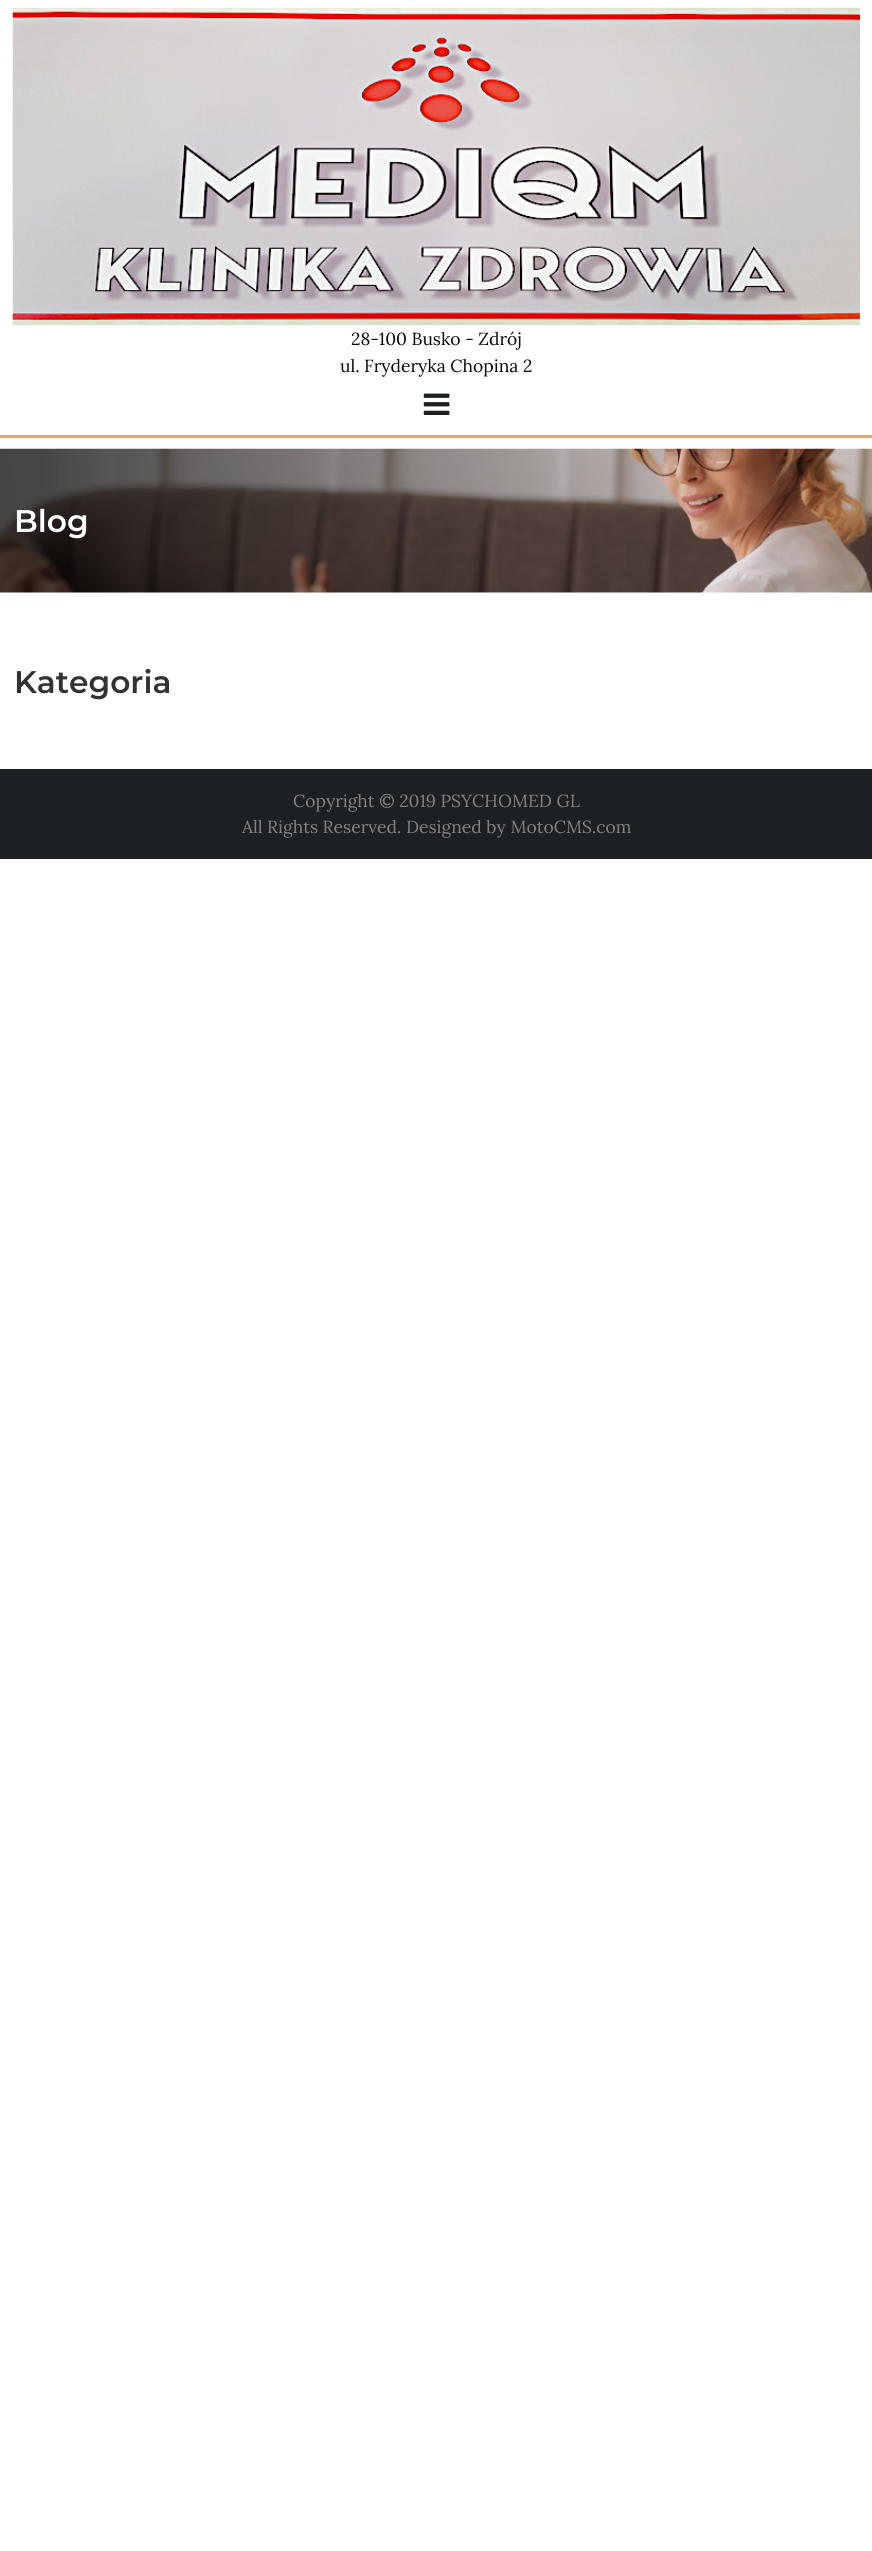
import math
import cairo

surface = cairo.ImageSurface(cairo.Format.RGB24, 872, 2551)
ctx = cairo.Context(surface)
options = cairo.FontOptions()
options.set_hint_metrics(cairo.HintMetrics.OFF)
options.set_hint_style(cairo.HintStyle.NONE)
ctx.set_font_options(options)
ctx.set_miter_limit(4)


def ink(r, g, b):
    ctx.set_source_rgb(r / 255, g / 255, b / 255)


def write(x, y, s, family, size, color, bold=False, italic=False):
    ctx.select_font_face(family, cairo.FontSlant.ITALIC if italic else cairo.FontSlant.NORMAL, cairo.FontWeight.BOLD if bold else cairo.FontWeight.NORMAL)
    ctx.set_font_size(size)
    ink(*color)
    ctx.move_to(x, y)
    ctx.show_text(s)


def block(x, y, w, h, *color):
    ink(*color)
    ctx.rectangle(x, y, w, h)
    ctx.fill()


def paste(path, x, y, w, h):
    ctx.save()
    ctx.set_source_surface(cairo.ImageSurface.create_from_png(path), x, y)
    ctx.rectangle(x, y, w, h)
    ctx.fill()
    ctx.restore()


s1 = dict(family="Lora", size=17.5, color=(7, 8, 8))
s2 = dict(family="Montserrat SemiBold", size=31.25, color=(255, 255, 255))
s3 = dict(family="Montserrat SemiBold", size=31.25, color=(51, 51, 51))
s4 = dict(family="Lora", size=17.5, color=(130, 130, 130))

ink(255, 255, 255)
ctx.paint()
paste("pic1.png", 12, 7, 848, 318)
write(351, 345, "28-100 Busko - Zdrój", **s1)
write(340, 372, "ul. Fryderyka Chopina 2", **s1)
paste("pic2.png", 423, 393, 27, 22)
block(0, 435, 872, 3, 226, 169, 100)
paste("pic3.png", 0, 448, 872, 145)
write(14, 532, "Blog", **s2)
write(14, 693, "Kategoria", **s3)
block(0, 769, 872, 90, 29, 32, 35)
write(293, 807, "Copyright © 2019 PSYCHOMED GL", **s4)
write(242, 833, "All Rights Reserved. Designed by MotoCMS.com", **s4)
surface.write_to_png("screenshot.png")
